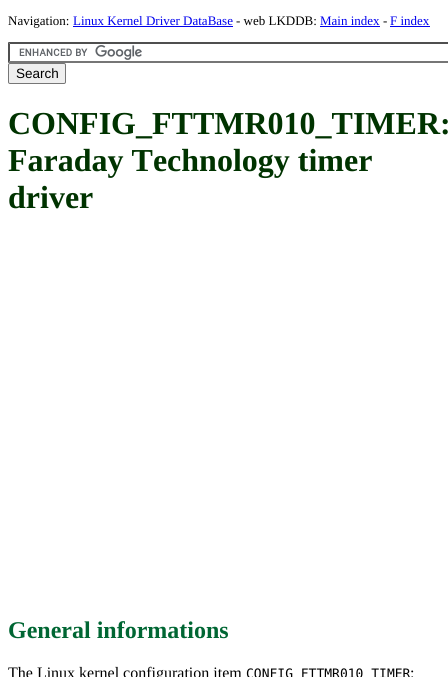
import math
import cairo

surface = cairo.ImageSurface(cairo.Format.RGB24, 448, 677)
ctx = cairo.Context(surface)
options = cairo.FontOptions()
options.set_hint_metrics(cairo.HintMetrics.OFF)
options.set_hint_style(cairo.HintStyle.NONE)
ctx.set_font_options(options)
ctx.set_miter_limit(4)


def ink(r, g, b):
    ctx.set_source_rgb(r / 255, g / 255, b / 255)


def write(x, y, s, family, size, color, bold=False, italic=False):
    ctx.select_font_face(family, cairo.FontSlant.ITALIC if italic else cairo.FontSlant.NORMAL, cairo.FontWeight.BOLD if bold else cairo.FontWeight.NORMAL)
    ctx.set_font_size(size)
    ink(*color)
    ctx.move_to(x, y)
    ctx.show_text(s)


def block(x, y, w, h, *color):
    ink(*color)
    ctx.rectangle(x, y, w, h)
    ctx.fill()


def round_path(x, y, w, h, r):
    ctx.new_sub_path()
    for i, (u, v) in enumerate([(x + w - r, y + h - r), (x + r, y + h - r), (x + r, y + r), (x + w - r, y + r)]):
        ctx.arc(u, v, r, i * math.pi / 2, (i + 1) * math.pi / 2)
    ctx.close_path()


def paste(path, x, y, w, h):
    ctx.save()
    ctx.set_source_surface(cairo.ImageSurface.create_from_png(path), x, y)
    ctx.rectangle(x, y, w, h)
    ctx.fill()
    ctx.restore()


s1 = dict(family="Liberation Serif", size=13, color=(0, 0, 0))
s2 = dict(family="Liberation Serif", size=13, color=(0, 0, 238))
s3 = dict(family="Liberation Sans", size=13.5, color=(0, 0, 0))
s4 = dict(family="Liberation Serif", size=32, color=(0, 51, 0), bold=True)
s5 = dict(family="Liberation Serif", size=24, color=(0, 102, 51), bold=True)
s6 = dict(family="Liberation Serif", size=16, color=(0, 0, 0))
s7 = dict(family="DejaVu Sans Mono", size=13, color=(0, 0, 0))

ink(255, 255, 255)
ctx.paint()
write(8, 25, "Navigation:", **s1)
write(73, 25, "Linux Kernel Driver DataBase", **s2)
block(73, 26, 160, 1, 0, 0, 238)
write(236, 25, "- web LKDDB:", **s1)
write(320, 25, "Main index", **s2)
block(320, 26, 60, 1, 0, 0, 238)
write(383, 25, "-", **s1)
write(390, 25, "F index", **s2)
block(390, 26, 40, 1, 0, 0, 238)
paste("pic1.png", 19, 45, 123, 15)
ink(79, 79, 79)
ctx.new_path()
ctx.move_to(8, 42)
ctx.line_to(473, 42)
ctx.line_to(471, 44)
ctx.line_to(10, 44)
ctx.close_path()
ctx.fill()
ink(118, 118, 118)
ctx.new_path()
ctx.move_to(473, 63)
ctx.line_to(8, 63)
ctx.line_to(10, 61)
ctx.line_to(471, 61)
ctx.close_path()
ctx.fill()
ink(79, 79, 79)
ctx.new_path()
ctx.move_to(8, 63)
ctx.line_to(8, 42)
ctx.line_to(10, 44)
ctx.line_to(10, 61)
ctx.close_path()
ctx.fill()
ink(239, 239, 239)
round_path(8.5, 63.5, 57, 20, 1.5)
ctx.fill_preserve()
ink(118, 118, 118)
ctx.set_line_width(1)
ctx.stroke()
write(16, 78, "Search", **s3)
write(8, 134, "CONFIG_FTTMR010_TIMER:", **s4)
write(8, 171, "Faraday Technology timer", **s4)
write(8, 208, "driver", **s4)
write(8, 638, "General informations", **s5)
write(8, 678, "The Linux kernel configuration item", **s6)
write(246, 678, "CONFIG_FTTMR010_TIMER", **s7)
write(410, 678, ":", **s6)
surface.write_to_png("screenshot.png")
